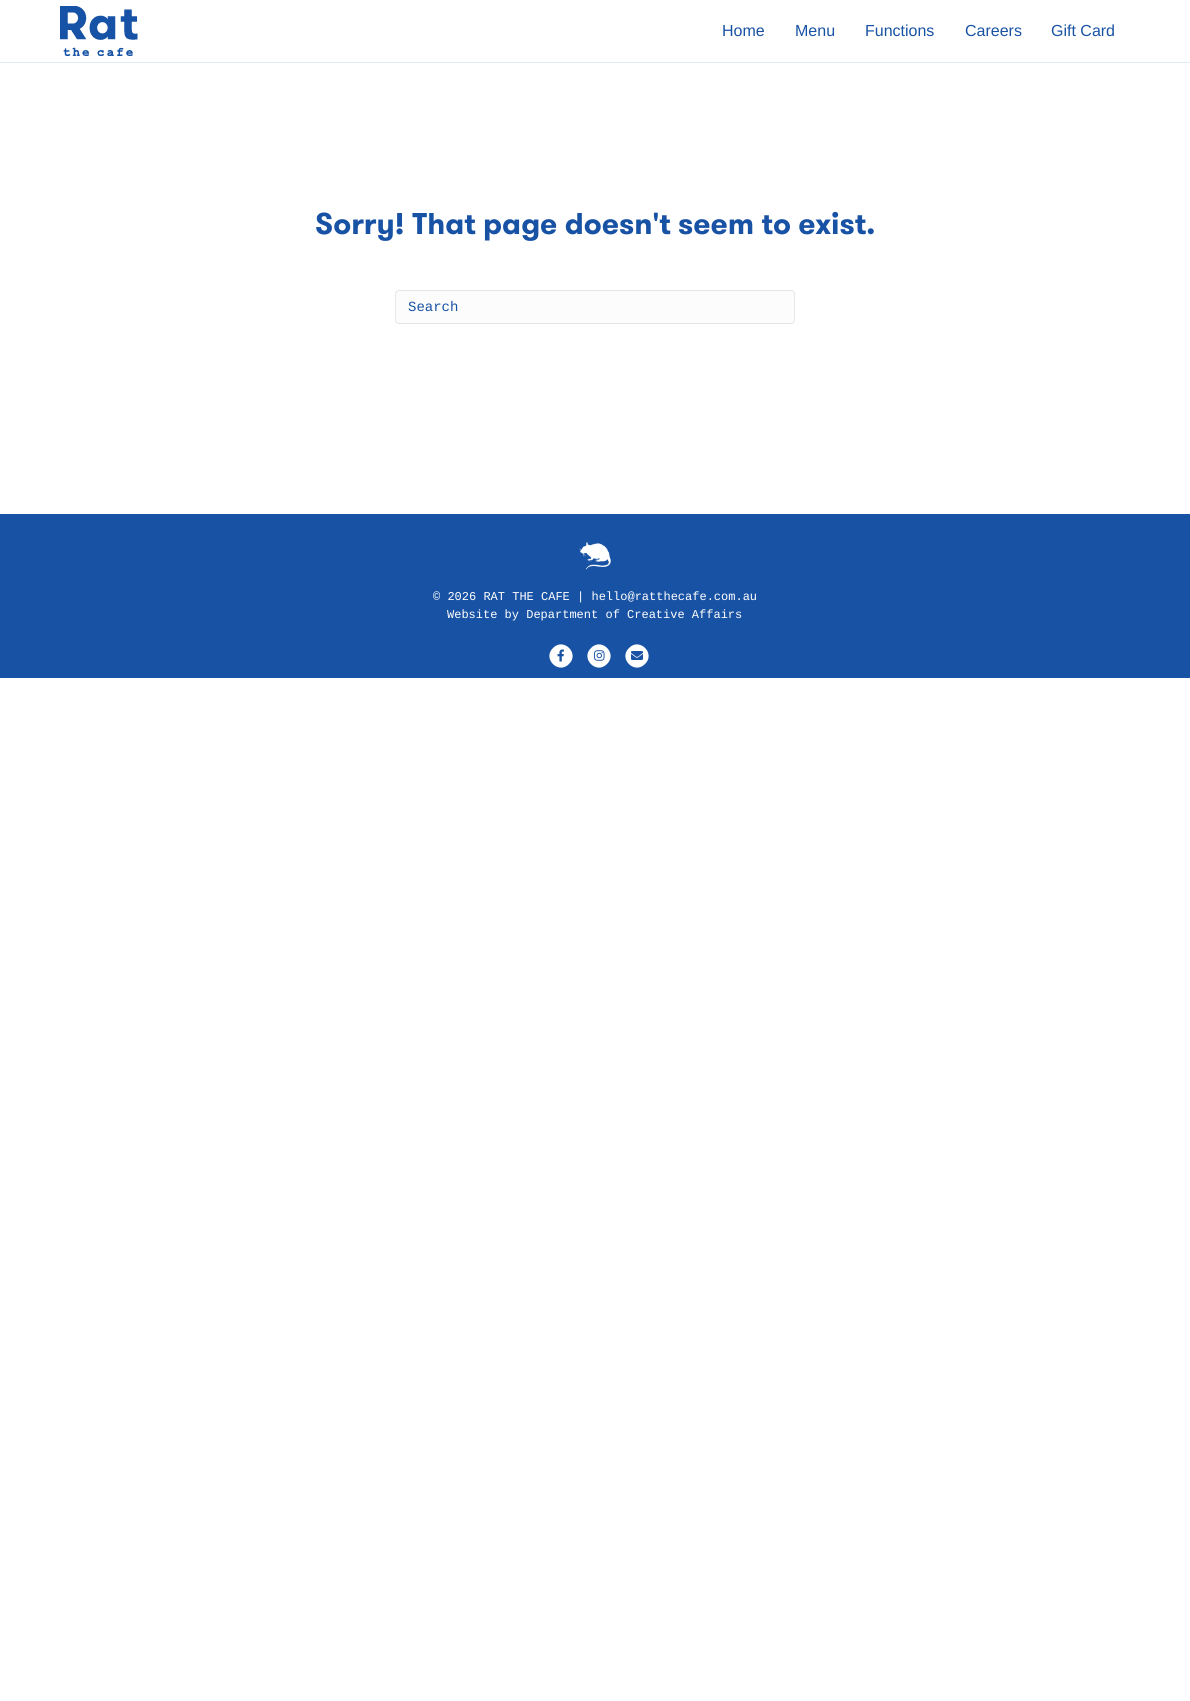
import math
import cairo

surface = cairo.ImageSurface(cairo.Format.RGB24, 1190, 1701)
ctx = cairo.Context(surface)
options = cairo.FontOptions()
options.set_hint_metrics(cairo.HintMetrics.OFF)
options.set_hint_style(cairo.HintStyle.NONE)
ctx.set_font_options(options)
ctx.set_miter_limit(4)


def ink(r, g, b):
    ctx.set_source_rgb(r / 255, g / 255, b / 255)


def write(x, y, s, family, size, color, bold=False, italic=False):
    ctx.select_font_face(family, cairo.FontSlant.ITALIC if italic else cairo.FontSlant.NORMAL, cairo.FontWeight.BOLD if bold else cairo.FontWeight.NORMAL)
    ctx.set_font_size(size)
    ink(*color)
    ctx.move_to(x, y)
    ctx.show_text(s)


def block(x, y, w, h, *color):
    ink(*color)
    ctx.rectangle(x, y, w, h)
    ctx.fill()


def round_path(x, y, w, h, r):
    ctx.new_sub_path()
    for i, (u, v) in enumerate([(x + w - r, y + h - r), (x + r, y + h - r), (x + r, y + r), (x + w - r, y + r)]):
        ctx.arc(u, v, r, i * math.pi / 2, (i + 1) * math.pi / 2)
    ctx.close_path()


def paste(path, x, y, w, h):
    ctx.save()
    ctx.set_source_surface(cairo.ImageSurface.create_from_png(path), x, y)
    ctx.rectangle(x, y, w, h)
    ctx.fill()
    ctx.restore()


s1 = dict(family="Liberation Sans", size=16, color=(24, 82, 164))
s2 = dict(family="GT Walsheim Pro", size=30, color=(24, 82, 164), bold=True)
s3 = dict(family="Liberation Mono", size=14, color=(24, 82, 164))
s4 = dict(family="Liberation Mono", size=12, color=(255, 255, 255))

ink(255, 255, 255)
ctx.paint()
block(0, 62, 1190, 1, 225, 233, 243)
paste("pic1.png", 60, 6, 78, 50)
write(722, 36, "Home", **s1)
write(795, 36, "Menu", **s1)
write(865, 36, "Functions", **s1)
write(965, 36, "Careers", **s1)
write(1051, 36, "Gift Card", **s1)
write(315, 234, "Sorry! That page doesn't seem to exist.", **s2)
ink(252, 252, 252)
round_path(395.5, 290.5, 399, 33, 3.5)
ctx.fill_preserve()
ink(230, 230, 230)
ctx.set_line_width(1)
ctx.stroke()
write(408, 311, "Search", **s3)
block(0, 514, 1190, 164, 24, 82, 164)
paste("pic2.png", 579, 542, 32, 28)
write(433, 600, "© 2026 RAT THE CAFE | hello@ratthecafe.com.au", **s4)
write(447, 618, "Website by Department of Creative Affairs", **s4)
ctx.new_path()
ctx.move_to(553, 648)
ctx.curve_to(563.5, 637, 580, 653.5, 569, 664)
ctx.curve_to(558.5, 675, 542, 658.5, 553, 648)
ctx.close_path()
ctx.fill()
paste("pic3.png", 557, 649, 7, 13)
ctx.new_path()
ctx.move_to(591, 648)
ctx.curve_to(601.5, 637, 618, 653.5, 607, 664)
ctx.curve_to(596.5, 675, 580, 658.5, 591, 648)
ctx.close_path()
ctx.fill()
paste("pic4.png", 594, 650, 11, 11)
ctx.new_path()
ctx.move_to(629, 648)
ctx.curve_to(639.5, 637, 656, 653.5, 645, 664)
ctx.curve_to(634.5, 675, 618, 658.5, 629, 648)
ctx.close_path()
ctx.fill()
paste("pic5.png", 631, 651, 12, 9)
surface.write_to_png("screenshot.png")
